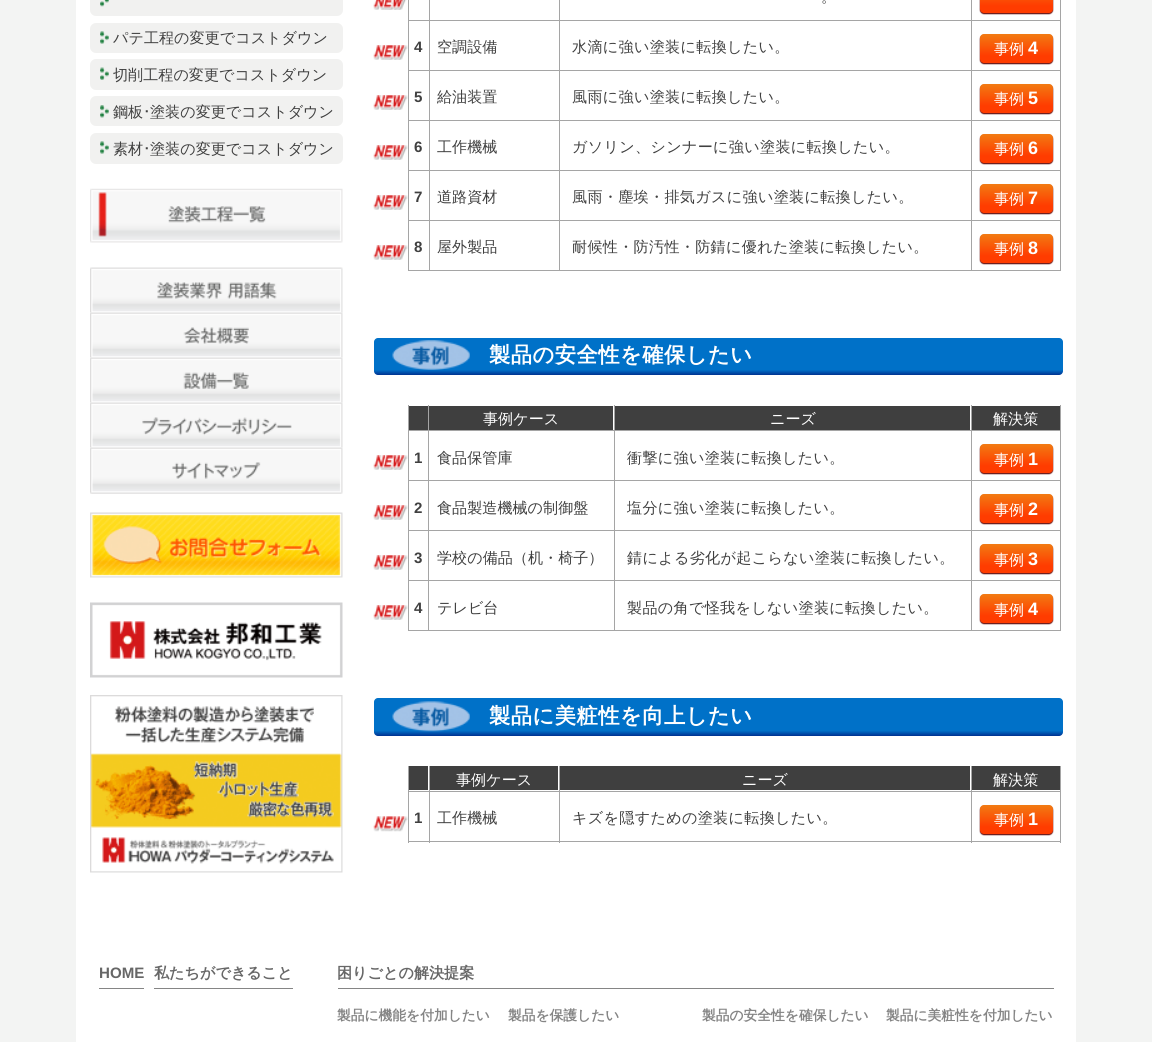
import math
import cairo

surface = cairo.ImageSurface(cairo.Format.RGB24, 1152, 1042)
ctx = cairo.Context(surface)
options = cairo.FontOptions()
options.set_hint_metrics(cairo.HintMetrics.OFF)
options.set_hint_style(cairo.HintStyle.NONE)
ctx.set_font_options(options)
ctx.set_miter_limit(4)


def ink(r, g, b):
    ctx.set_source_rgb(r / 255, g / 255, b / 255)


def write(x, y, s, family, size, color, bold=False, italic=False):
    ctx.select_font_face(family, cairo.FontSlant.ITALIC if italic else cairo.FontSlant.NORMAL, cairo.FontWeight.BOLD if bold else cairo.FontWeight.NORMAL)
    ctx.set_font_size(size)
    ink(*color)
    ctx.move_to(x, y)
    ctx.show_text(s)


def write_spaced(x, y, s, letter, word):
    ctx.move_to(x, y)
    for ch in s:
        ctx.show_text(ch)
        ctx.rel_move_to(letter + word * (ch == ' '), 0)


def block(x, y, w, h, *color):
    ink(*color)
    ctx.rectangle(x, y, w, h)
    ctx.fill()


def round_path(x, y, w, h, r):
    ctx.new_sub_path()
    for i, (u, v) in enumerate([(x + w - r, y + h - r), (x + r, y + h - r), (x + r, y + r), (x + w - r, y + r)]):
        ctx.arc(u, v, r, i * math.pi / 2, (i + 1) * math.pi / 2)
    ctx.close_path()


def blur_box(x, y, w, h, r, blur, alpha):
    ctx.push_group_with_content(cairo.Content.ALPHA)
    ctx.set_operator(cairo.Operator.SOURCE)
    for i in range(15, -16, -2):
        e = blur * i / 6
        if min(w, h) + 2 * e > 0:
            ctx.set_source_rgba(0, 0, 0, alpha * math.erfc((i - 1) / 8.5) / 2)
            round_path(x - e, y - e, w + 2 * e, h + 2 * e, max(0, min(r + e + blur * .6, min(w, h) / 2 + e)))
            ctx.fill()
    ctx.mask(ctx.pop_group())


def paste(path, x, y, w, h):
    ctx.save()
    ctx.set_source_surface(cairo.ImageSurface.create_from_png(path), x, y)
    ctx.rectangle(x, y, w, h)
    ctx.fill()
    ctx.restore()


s1 = dict(family="WenQuanYi Zen Hei Medium", size=15.1, color=(64, 64, 64))
s2 = dict(family="IPAPGothic", size=15.1, color=(64, 64, 64))
s3 = dict(family="Liberation Sans", size=15.1, color=(64, 64, 64), bold=True)
s4 = dict(family="WenQuanYi Zen Hei Medium", size=15.1, color=(255, 255, 255))
s5 = dict(family="Liberation Sans", size=18, color=(255, 255, 255), bold=True)
s6 = dict(family="Liberation Sans", size=15.1, color=(103, 103, 103), bold=True)
s7 = dict(family="WenQuanYi Zen Hei", size=15.1, color=(103, 103, 103), bold=True)
s8 = dict(family="WenQuanYi Zen Hei", size=13.75, color=(133, 133, 133), bold=True)

ink(243, 244, 243)
ctx.paint()
block(76, 0, 1000, 1042, 255, 255, 255)
ink(241, 241, 240)
round_path(90, -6, 253, 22, 6)
ctx.fill()
paste("pic1.png", 100, 0, 9, 7)
round_path(90, 23, 253, 30, 6)
ctx.fill()
paste("pic2.png", 100, 31, 9, 13)
write(113, 43, "パテ工程の変更でコストダウン", **s1)
ink(241, 241, 240)
round_path(90, 59, 253, 31, 6)
ctx.fill()
paste("pic3.png", 100, 67, 9, 13)
write(113, 80, "切削工程の変更でコストダウン", **s1)
ink(241, 241, 240)
round_path(90, 96, 253, 30, 6)
ctx.fill()
paste("pic4.png", 100, 105, 9, 13)
write(113, 117, "鋼板", **s1)
write(143, 117, "･", **s2)
write(150, 117, "塗装の変更でコストダウン", **s1)
ink(241, 241, 240)
round_path(90, 133, 253, 31, 6)
ctx.fill()
paste("pic5.png", 100, 141, 9, 13)
write(113, 154, "素材", **s1)
write(143, 154, "･", **s2)
write(150, 154, "塗装の変更でコストダウン", **s1)
paste("pic6.png", 90, 188, 253, 55)
paste("pic7.png", 90, 267, 253, 46)
paste("pic8.png", 90, 312, 253, 46)
paste("pic9.png", 90, 357, 253, 46)
paste("pic10.png", 90, 402, 253, 46)
paste("pic11.png", 90, 447, 253, 47)
paste("pic12.png", 90, 512, 253, 66)
paste("pic13.png", 90, 602, 253, 76)
paste("pic14.png", 90, 695, 253, 178)
paste("pic15.png", 373, 0, 34, 10)
block(1060, 0, 1, 271, 165, 165, 165)
block(971, 270, 90, 1, 165, 165, 165)
block(971, 220, 1, 51, 165, 165, 165)
block(971, 220, 90, 1, 165, 165, 165)
block(971, 170, 1, 51, 165, 165, 165)
block(971, 170, 90, 1, 165, 165, 165)
block(971, 120, 1, 51, 165, 165, 165)
block(971, 120, 90, 1, 165, 165, 165)
block(971, 70, 1, 51, 165, 165, 165)
block(971, 70, 90, 1, 165, 165, 165)
block(971, 20, 1, 51, 165, 165, 165)
block(971, 20, 90, 1, 165, 165, 165)
block(971, 0, 1, 21, 165, 165, 165)
block(559, 270, 414, 1, 165, 165, 165)
block(559, 220, 1, 51, 165, 165, 165)
block(559, 220, 414, 1, 165, 165, 165)
block(559, 170, 1, 51, 165, 165, 165)
block(559, 170, 414, 1, 165, 165, 165)
block(559, 120, 1, 51, 165, 165, 165)
block(559, 120, 414, 1, 165, 165, 165)
block(559, 70, 1, 51, 165, 165, 165)
block(559, 70, 414, 1, 165, 165, 165)
block(559, 20, 1, 51, 165, 165, 165)
block(559, 20, 414, 1, 165, 165, 165)
block(559, 0, 1, 21, 165, 165, 165)
block(429, 270, 131, 1, 165, 165, 165)
block(429, 220, 1, 51, 165, 165, 165)
block(429, 220, 131, 1, 165, 165, 165)
block(429, 170, 1, 51, 165, 165, 165)
block(429, 170, 131, 1, 165, 165, 165)
block(429, 120, 1, 51, 165, 165, 165)
block(429, 120, 131, 1, 165, 165, 165)
block(429, 70, 1, 51, 165, 165, 165)
block(429, 70, 131, 1, 165, 165, 165)
block(429, 20, 1, 51, 165, 165, 165)
block(429, 20, 131, 1, 165, 165, 165)
block(429, 0, 1, 21, 165, 165, 165)
block(408, 270, 22, 1, 165, 165, 165)
block(408, 220, 1, 51, 165, 165, 165)
block(408, 220, 22, 1, 165, 165, 165)
block(408, 170, 1, 51, 165, 165, 165)
block(408, 170, 22, 1, 165, 165, 165)
block(408, 120, 1, 51, 165, 165, 165)
block(408, 120, 22, 1, 165, 165, 165)
block(408, 70, 1, 51, 165, 165, 165)
block(408, 70, 22, 1, 165, 165, 165)
block(408, 20, 1, 51, 165, 165, 165)
block(408, 20, 22, 1, 165, 165, 165)
block(408, 0, 1, 21, 165, 165, 165)
ink(64, 64, 64)
write_spaced(821, 2, "。", 0.3, 0)
ink(92, 0, 0)
blur_box(980, -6, 73, 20, 4, 0.5, 1)
gradient = cairo.LinearGradient(980, 13, 980, -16)
gradient.add_color_stop_rgba(0.25, 1, 0.235, 0, 1)
gradient.add_color_stop_rgba(1, 0.949, 0.482, 0.071, 1)
ctx.set_source(gradient)
round_path(980, -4, 73, 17, 4)
ctx.fill()
paste("pic16.png", 373, 45, 35, 15)
write(414, 52, "4", **s3)
write(437, 52, "空調設備", **s1)
write_spaced(572, 52, "水滴に強い塗装に転換したい。", 0.3, 0)
ink(92, 0, 0)
blur_box(980, 35, 73, 29, 4, 0.5, 1)
gradient = cairo.LinearGradient(980, 63, 980, 34)
gradient.add_color_stop_rgba(0.25, 1, 0.235, 0, 1)
gradient.add_color_stop_rgba(1, 0.949, 0.482, 0.071, 1)
ctx.set_source(gradient)
round_path(980, 34, 73, 29, 4)
ctx.fill()
write(994, 54, "事例", **s4)
write(1028, 54, "4", **s5)
paste("pic16.png", 373, 95, 35, 15)
write(414, 102, "5", **s3)
write(437, 102, "給油装置", **s1)
write_spaced(572, 102, "風雨に強い塗装に転換したい。", 0.3, 0)
ink(92, 0, 0)
blur_box(980, 85, 73, 29, 4, 0.5, 1)
gradient = cairo.LinearGradient(980, 113, 980, 84)
gradient.add_color_stop_rgba(0.25, 1, 0.235, 0, 1)
gradient.add_color_stop_rgba(1, 0.949, 0.482, 0.071, 1)
ctx.set_source(gradient)
round_path(980, 84, 73, 29, 4)
ctx.fill()
write(994, 104, "事例", **s4)
write(1028, 104, "5", **s5)
paste("pic16.png", 373, 145, 35, 15)
write(414, 152, "6", **s3)
write(437, 152, "工作機械", **s1)
write_spaced(572, 152, "ガソリン、シンナーに強い塗装に転換したい。", 0.3, 0)
ink(92, 0, 0)
blur_box(980, 135, 73, 29, 4, 0.5, 1)
gradient = cairo.LinearGradient(980, 163, 980, 134)
gradient.add_color_stop_rgba(0.25, 1, 0.235, 0, 1)
gradient.add_color_stop_rgba(1, 0.949, 0.482, 0.071, 1)
ctx.set_source(gradient)
round_path(980, 134, 73, 29, 4)
ctx.fill()
write(994, 154, "事例", **s4)
write(1028, 154, "6", **s5)
paste("pic16.png", 373, 195, 35, 15)
write(414, 202, "7", **s3)
write(437, 202, "道路資材", **s1)
write_spaced(572, 202, "風雨・塵埃・排気ガスに強い塗装に転換したい。", 0.3, 0)
ink(92, 0, 0)
blur_box(980, 185, 73, 29, 4, 0.5, 1)
gradient = cairo.LinearGradient(980, 213, 980, 184)
gradient.add_color_stop_rgba(0.25, 1, 0.235, 0, 1)
gradient.add_color_stop_rgba(1, 0.949, 0.482, 0.071, 1)
ctx.set_source(gradient)
round_path(980, 184, 73, 29, 4)
ctx.fill()
write(994, 204, "事例", **s4)
write(1028, 204, "7", **s5)
paste("pic16.png", 373, 245, 35, 15)
write(414, 252, "8", **s3)
write(437, 252, "屋外製品", **s1)
write_spaced(572, 252, "耐候性・防汚性・防錆に優れた塗装に転換したい。", 0.3, 0)
ink(92, 0, 0)
blur_box(980, 235, 73, 29, 4, 0.5, 1)
gradient = cairo.LinearGradient(980, 263, 980, 234)
gradient.add_color_stop_rgba(0.25, 1, 0.235, 0, 1)
gradient.add_color_stop_rgba(1, 0.949, 0.482, 0.071, 1)
ctx.set_source(gradient)
round_path(980, 234, 73, 29, 4)
ctx.fill()
write(994, 254, "事例", **s4)
write(1028, 254, "8", **s5)
gradient = cairo.LinearGradient(374, 375, 374, 338)
gradient.add_color_stop_rgba(0.01, 0, 0.212, 0.58, 1)
gradient.add_color_stop_rgba(0.14, 0, 0.443, 0.784, 1)
ctx.set_source(gradient)
round_path(374, 338, 689, 37, 4)
ctx.fill()
paste("pic17.png", 392, 340, 78, 30)
ctx.select_font_face("WenQuanYi Zen Hei", cairo.FontSlant.NORMAL, cairo.FontWeight.BOLD)
ctx.set_font_size(21.25)
ink(255, 255, 255)
write_spaced(489, 362, "製品の安全性を確保したい", 0.5, 0)
block(409, 406, 19, 24, 63, 63, 63)
block(1060, 405, 1, 226, 165, 165, 165)
block(971, 630, 90, 1, 165, 165, 165)
block(971, 580, 1, 51, 165, 165, 165)
block(971, 580, 90, 1, 165, 165, 165)
block(971, 530, 1, 51, 165, 165, 165)
block(971, 530, 90, 1, 165, 165, 165)
block(971, 480, 1, 51, 165, 165, 165)
block(971, 480, 90, 1, 165, 165, 165)
block(971, 430, 1, 51, 165, 165, 165)
block(971, 430, 90, 1, 165, 165, 165)
block(971, 405, 1, 26, 165, 165, 165)
block(614, 630, 359, 1, 165, 165, 165)
block(614, 580, 1, 51, 165, 165, 165)
block(614, 580, 359, 1, 165, 165, 165)
block(614, 530, 1, 51, 165, 165, 165)
block(614, 530, 359, 1, 165, 165, 165)
block(614, 480, 1, 51, 165, 165, 165)
block(614, 480, 359, 1, 165, 165, 165)
block(614, 430, 1, 51, 165, 165, 165)
block(614, 430, 359, 1, 165, 165, 165)
block(614, 405, 1, 26, 165, 165, 165)
block(428, 630, 187, 1, 165, 165, 165)
block(428, 580, 1, 51, 165, 165, 165)
block(428, 580, 187, 1, 165, 165, 165)
block(428, 530, 1, 51, 165, 165, 165)
block(428, 530, 187, 1, 165, 165, 165)
block(428, 480, 1, 51, 165, 165, 165)
block(428, 480, 187, 1, 165, 165, 165)
block(428, 430, 1, 51, 165, 165, 165)
block(428, 430, 187, 1, 165, 165, 165)
block(428, 405, 1, 26, 165, 165, 165)
block(408, 630, 21, 1, 165, 165, 165)
block(408, 580, 1, 51, 165, 165, 165)
block(408, 580, 21, 1, 165, 165, 165)
block(408, 530, 1, 51, 165, 165, 165)
block(408, 530, 21, 1, 165, 165, 165)
block(408, 480, 1, 51, 165, 165, 165)
block(408, 480, 21, 1, 165, 165, 165)
block(408, 430, 1, 51, 165, 165, 165)
block(408, 430, 21, 1, 165, 165, 165)
block(408, 405, 1, 26, 165, 165, 165)
block(429, 406, 184, 24, 63, 63, 63)
write(483, 424, "事例ケース", **s4)
block(615, 406, 355, 24, 63, 63, 63)
write(770, 424, "ニーズ", **s4)
block(972, 406, 88, 24, 63, 63, 63)
write(993, 424, "解決策", **s4)
paste("pic16.png", 373, 455, 35, 15)
write(414, 463, "1", **s3)
write(437, 463, "食品保管庫", **s1)
write_spaced(627, 463, "衝撃に強い塗装に転換したい。", 0.3, 0)
ink(92, 0, 0)
blur_box(980, 445, 73, 29, 4, 0.5, 1)
gradient = cairo.LinearGradient(980, 473, 980, 444)
gradient.add_color_stop_rgba(0.25, 1, 0.235, 0, 1)
gradient.add_color_stop_rgba(1, 0.949, 0.482, 0.071, 1)
ctx.set_source(gradient)
round_path(980, 444, 73, 29, 4)
ctx.fill()
write(994, 465, "事例", **s4)
write(1028, 465, "1", **s5)
paste("pic16.png", 373, 505, 35, 15)
write(414, 513, "2", **s3)
write(437, 513, "食品製造機械の制御盤", **s1)
write_spaced(627, 513, "塩分に強い塗装に転換したい。", 0.3, 0)
ink(92, 0, 0)
blur_box(980, 495, 73, 29, 4, 0.5, 1)
gradient = cairo.LinearGradient(980, 523, 980, 494)
gradient.add_color_stop_rgba(0.25, 1, 0.235, 0, 1)
gradient.add_color_stop_rgba(1, 0.949, 0.482, 0.071, 1)
ctx.set_source(gradient)
round_path(980, 494, 73, 29, 4)
ctx.fill()
write(994, 515, "事例", **s4)
write(1028, 515, "2", **s5)
paste("pic16.png", 373, 555, 35, 15)
write(414, 563, "3", **s3)
write(437, 563, "学校の備品（机・椅子）", **s1)
write_spaced(627, 563, "錆による劣化が起こらない塗装に転換したい。", 0.3, 0)
ink(92, 0, 0)
blur_box(980, 545, 73, 29, 4, 0.5, 1)
gradient = cairo.LinearGradient(980, 573, 980, 544)
gradient.add_color_stop_rgba(0.25, 1, 0.235, 0, 1)
gradient.add_color_stop_rgba(1, 0.949, 0.482, 0.071, 1)
ctx.set_source(gradient)
round_path(980, 544, 73, 29, 4)
ctx.fill()
write(994, 565, "事例", **s4)
write(1028, 565, "3", **s5)
paste("pic16.png", 373, 605, 35, 15)
write(414, 613, "4", **s3)
write(437, 613, "テレビ台", **s1)
write_spaced(627, 613, "製品の角で怪我をしない塗装に転換したい。", 0.3, 0)
ink(92, 0, 0)
blur_box(980, 595, 73, 29, 4, 0.5, 1)
gradient = cairo.LinearGradient(980, 623, 980, 594)
gradient.add_color_stop_rgba(0.25, 1, 0.235, 0, 1)
gradient.add_color_stop_rgba(1, 0.949, 0.482, 0.071, 1)
ctx.set_source(gradient)
round_path(980, 594, 73, 29, 4)
ctx.fill()
write(994, 615, "事例", **s4)
write(1028, 615, "4", **s5)
gradient = cairo.LinearGradient(374, 736, 374, 698)
gradient.add_color_stop_rgba(0.01, 0, 0.212, 0.58, 1)
gradient.add_color_stop_rgba(0.14, 0, 0.443, 0.784, 1)
ctx.set_source(gradient)
round_path(374, 698, 689, 38, 4)
ctx.fill()
paste("pic18.png", 392, 701, 78, 31)
ctx.select_font_face("WenQuanYi Zen Hei", cairo.FontSlant.NORMAL, cairo.FontWeight.BOLD)
ctx.set_font_size(21.25)
ink(255, 255, 255)
write_spaced(489, 723, "製品に美粧性を向上したい", 0.5, 0)
block(409, 766, 19, 24, 63, 63, 63)
block(1060, 766, 1, 77, 165, 165, 165)
block(971, 841, 90, 1, 165, 165, 165)
block(971, 791, 1, 52, 165, 165, 165)
block(971, 791, 90, 1, 165, 165, 165)
block(971, 766, 1, 27, 165, 165, 165)
block(559, 841, 414, 1, 165, 165, 165)
block(559, 791, 1, 52, 165, 165, 165)
block(559, 791, 414, 1, 165, 165, 165)
block(559, 766, 1, 27, 165, 165, 165)
block(429, 841, 131, 1, 165, 165, 165)
block(429, 791, 1, 52, 165, 165, 165)
block(429, 791, 131, 1, 165, 165, 165)
block(429, 766, 1, 27, 165, 165, 165)
block(408, 841, 22, 1, 165, 165, 165)
block(408, 791, 1, 52, 165, 165, 165)
block(408, 791, 22, 1, 165, 165, 165)
block(408, 766, 1, 27, 165, 165, 165)
block(430, 766, 128, 24, 63, 63, 63)
write(456, 785, "事例ケース", **s4)
block(560, 766, 410, 24, 63, 63, 63)
write(742, 785, "ニーズ", **s4)
block(972, 766, 88, 24, 63, 63, 63)
write(993, 785, "解決策", **s4)
paste("pic19.png", 373, 816, 35, 16)
write(414, 823, "1", **s3)
write(437, 823, "工作機械", **s1)
write_spaced(572, 823, "キズを隠すための塗装に転換したい。", 0.3, 0)
ink(92, 0, 0)
blur_box(980, 806, 73, 29, 4, 0.5, 1)
gradient = cairo.LinearGradient(980, 834, 980, 805)
gradient.add_color_stop_rgba(0.25, 1, 0.235, 0, 1)
gradient.add_color_stop_rgba(1, 0.949, 0.482, 0.071, 1)
ctx.set_source(gradient)
round_path(980, 805, 73, 29, 4)
ctx.fill()
write(994, 825, "事例", **s4)
write(1028, 825, "1", **s5)
block(99, 988, 45, 1, 133, 133, 133)
write(99, 978, "HOME", **s6)
block(154, 988, 139, 1, 133, 133, 133)
write(154, 978, "私たちができること", **s7)
block(338, 988, 716, 1, 133, 133, 133)
write(337, 978, "困りごとの解決提案", **s7)
write(337, 1020, "製品に機能を付加したい", **s8)
write(508, 1020, "製品を保護したい", **s8)
write(702, 1020, "製品の安全性を確保したい", **s8)
write(886, 1020, "製品に美粧性を付加したい", **s8)
surface.write_to_png("screenshot.png")
